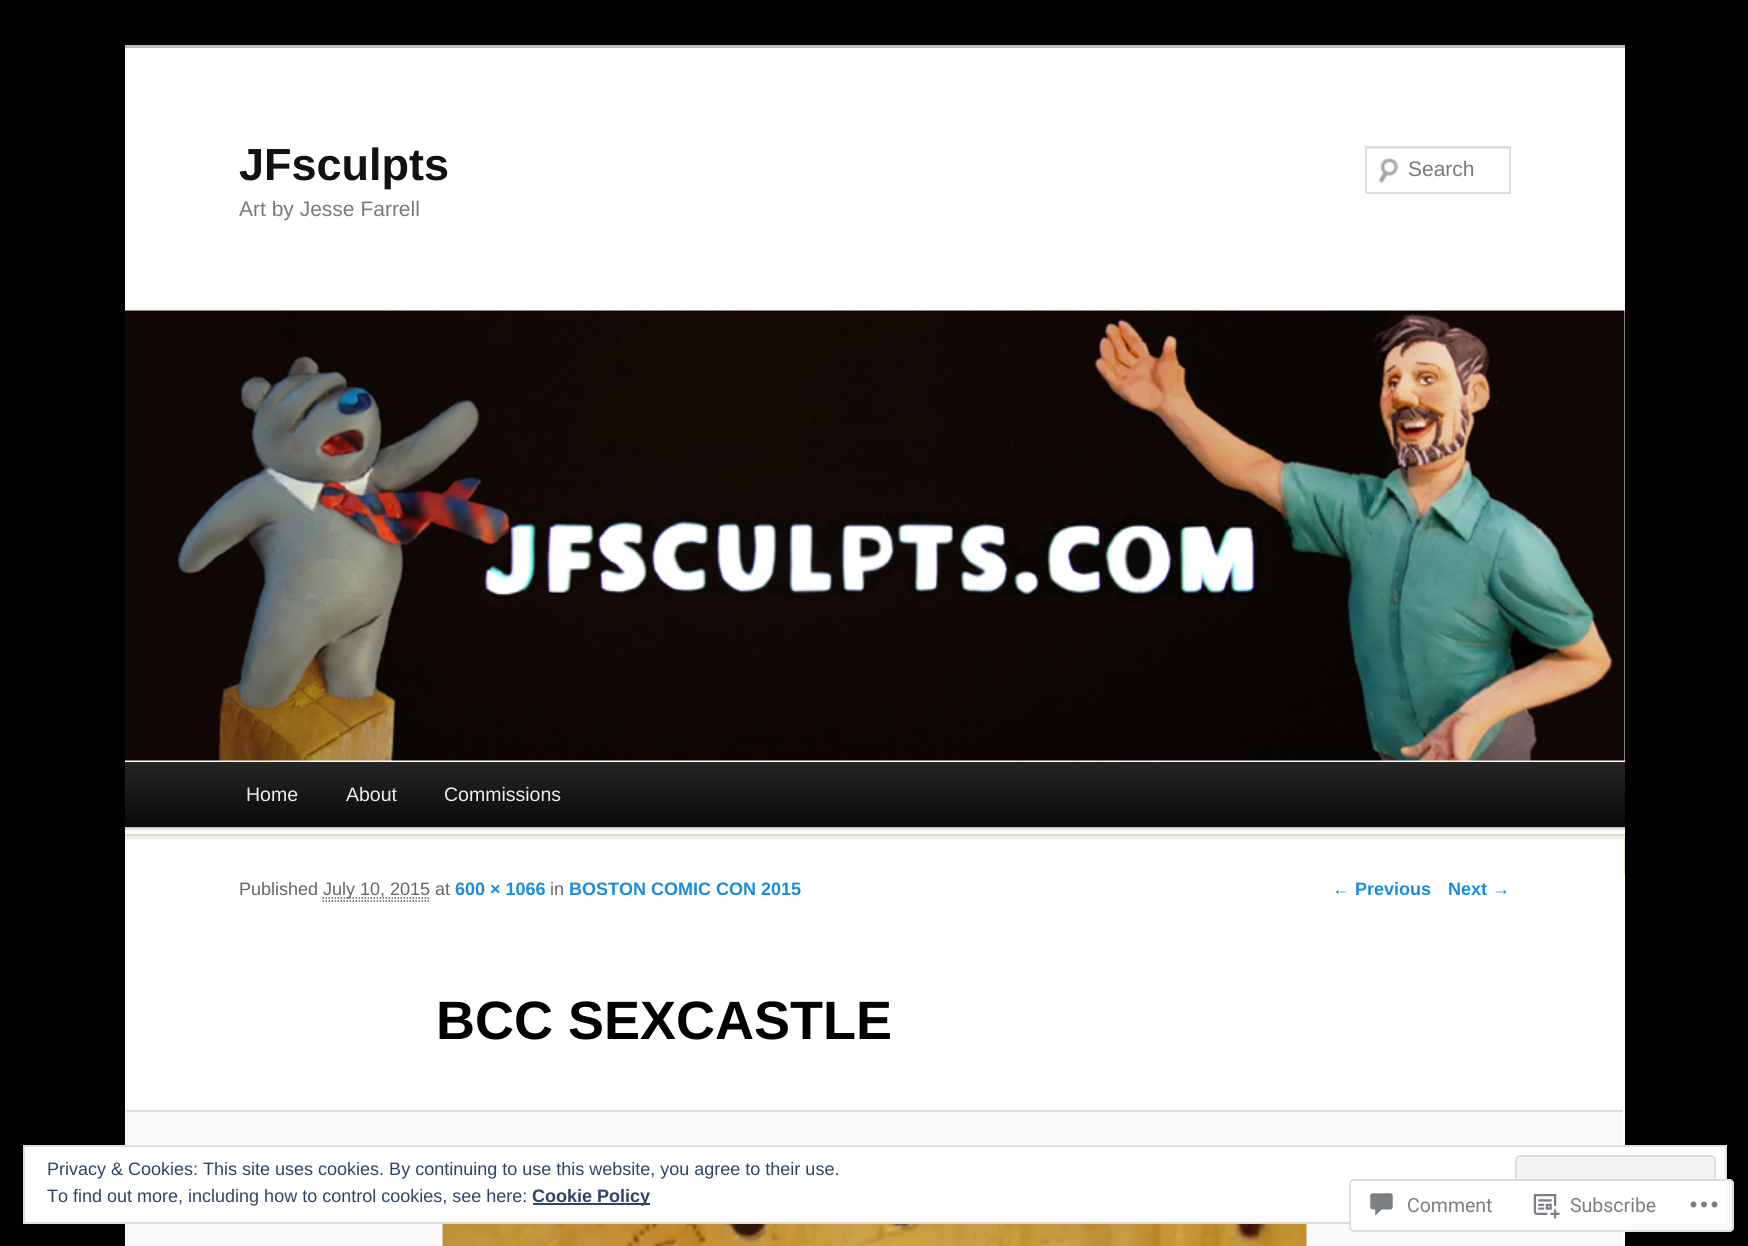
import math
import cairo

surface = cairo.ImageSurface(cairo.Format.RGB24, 1748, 1246)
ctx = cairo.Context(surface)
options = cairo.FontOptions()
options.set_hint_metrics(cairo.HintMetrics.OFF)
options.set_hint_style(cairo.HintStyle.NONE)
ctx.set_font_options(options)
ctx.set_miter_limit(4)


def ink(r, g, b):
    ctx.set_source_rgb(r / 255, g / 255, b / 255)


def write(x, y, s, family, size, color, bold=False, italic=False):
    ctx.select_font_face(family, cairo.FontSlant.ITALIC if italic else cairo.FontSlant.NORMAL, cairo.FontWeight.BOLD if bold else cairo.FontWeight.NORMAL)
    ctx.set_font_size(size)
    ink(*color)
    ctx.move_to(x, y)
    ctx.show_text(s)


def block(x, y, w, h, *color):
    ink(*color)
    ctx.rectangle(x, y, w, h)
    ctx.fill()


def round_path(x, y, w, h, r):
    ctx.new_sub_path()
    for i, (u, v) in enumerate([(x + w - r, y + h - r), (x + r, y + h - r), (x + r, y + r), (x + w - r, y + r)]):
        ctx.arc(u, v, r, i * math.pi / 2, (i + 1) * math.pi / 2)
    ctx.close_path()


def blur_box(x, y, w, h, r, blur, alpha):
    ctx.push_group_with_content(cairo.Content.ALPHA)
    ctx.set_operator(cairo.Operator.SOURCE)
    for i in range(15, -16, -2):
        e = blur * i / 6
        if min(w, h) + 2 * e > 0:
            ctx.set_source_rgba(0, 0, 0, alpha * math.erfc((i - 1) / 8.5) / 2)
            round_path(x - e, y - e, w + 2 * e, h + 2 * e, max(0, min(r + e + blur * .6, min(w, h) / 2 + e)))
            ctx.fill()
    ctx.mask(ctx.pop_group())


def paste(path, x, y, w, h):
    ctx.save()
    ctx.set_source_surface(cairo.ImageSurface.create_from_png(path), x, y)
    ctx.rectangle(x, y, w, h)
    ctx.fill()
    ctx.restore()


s1 = dict(family="Liberation Sans", size=45, color=(17, 17, 17), bold=True)
s2 = dict(family="Liberation Sans", size=21, color=(122, 122, 122))
s3 = dict(family="Liberation Sans", size=19.5, color=(238, 238, 238))
s4 = dict(family="Liberation Sans", size=18, color=(102, 102, 102))
s5 = dict(family="Liberation Sans", size=18, color=(27, 139, 224), bold=True)
s6 = dict(family="Liberation Sans", size=54, color=(0, 0, 0), bold=True)
s7 = dict(family="Liberation Sans", size=18, color=(46, 68, 103))
s8 = dict(family="Liberation Sans", size=18, color=(46, 68, 103), bold=True)
s9 = dict(family="Roboto", size=19.5, color=(123, 127, 133))

ink(0, 0, 0)
ctx.paint()
block(125, 48, 1500, 1198, 255, 255, 255)
block(125, 45, 1500, 3, 187, 187, 187)
write(239, 180, "JFsculpts", **s1)
write(239, 216, "Art by Jesse Farrell", **s2)
paste("pic1.png", 1378, 157, 21, 27)
block(1367, 148, 142, 1, 230, 230, 230)
ctx.rectangle(1366, 147, 144, 46)
ink(221, 221, 221)
ctx.stroke()
write(1408, 176, "Search", **s2)
ink(0, 0, 0)
blur_box(125, 764, 1500, 64, 0, 1.5, 0.4)
paste("pic2.png", 124, 310, 1501, 451)
gradient = cairo.LinearGradient(875, 762, 875, 827)
gradient.add_color_stop_rgba(0, 0.145, 0.145, 0.145, 1)
gradient.add_color_stop_rgba(1, 0.039, 0.039, 0.039, 1)
ctx.set_source(gradient)
ctx.rectangle(125, 762, 1500, 65)
ctx.fill()
write(246, 801, "Home", **s3)
write(346, 801, "About", **s3)
write(444, 801, "Commissions", **s3)
ink(222, 231, 177)
ctx.new_path()
ctx.move_to(125, 834)
ctx.line_to(125, 836)
ctx.line_to(1624, 836)
ctx.line_to(1624, 875)
ctx.line_to(1625, 875)
ctx.line_to(1625, 834)
ctx.close_path()
ctx.fill()
block(125, 836, 1500, 3, 238, 238, 238)
write(239, 895, "Published", **s4)
ctx.new_path()
ctx.move_to(322.5, 898)
ctx.line_to(429.5, 898)
ctx.set_line_width(1.5)
ctx.set_dash([1.5, 1.5])
ctx.stroke()
write(323, 895, "July 10, 2015 at", **s4)
ctx.new_path()
ctx.move_to(322.5, 901)
ctx.line_to(429, 901)
ctx.stroke()
write(455, 895, "600 × 1066", **s5)
write(550, 895, "in", **s4)
write(569, 895, "BOSTON COMIC CON 2015", **s5)
write(436, 1039, "BCC SEXCASTLE", **s6)
block(126, 1112, 1497, 134, 249, 249, 249)
block(126, 1110, 1497, 2, 221, 221, 221)
paste("pic3.png", 442, 1224, 865, 22)
write(1332, 895, "← Previous", **s5)
write(1448, 895, "Next →", **s5)
ink(255, 255, 255)
ctx.rectangle(24, 1146, 1702, 77)
ctx.fill_preserve()
ink(222, 222, 222)
ctx.set_line_width(2)
ctx.set_dash([])
ctx.stroke()
write(47, 1175, "Privacy & Cookies: This site uses cookies. By continuing to use this website, you agree to their use.", **s7)
ink(243, 243, 243)
round_path(1516, 1156, 199, 57, 4)
ctx.fill_preserve()
ink(222, 222, 222)
ctx.stroke()
write(47, 1202, "To find out more, including how to control cookies, see here:", **s7)
block(533, 1203, 117, 2, 46, 68, 103)
write(532, 1202, "Cookie Policy", **s8)
ctx.set_source_rgba(1, 1, 1, 0.98)
round_path(1349, 1179, 385, 53, 5)
ctx.fill()
round_path(1350, 1180, 383, 51, 4)
ctx.set_source_rgba(0.863, 0.863, 0.871, 0.98)
ctx.stroke()
paste("pic4.png", 1370, 1193, 23, 23)
write(1407, 1212, "Comment", **s9)
paste("pic5.png", 1533, 1194, 27, 25)
write(1570, 1212, "Subscribe", **s9)
paste("pic6.png", 1690, 1201, 28, 7)
surface.write_to_png("screenshot.png")
